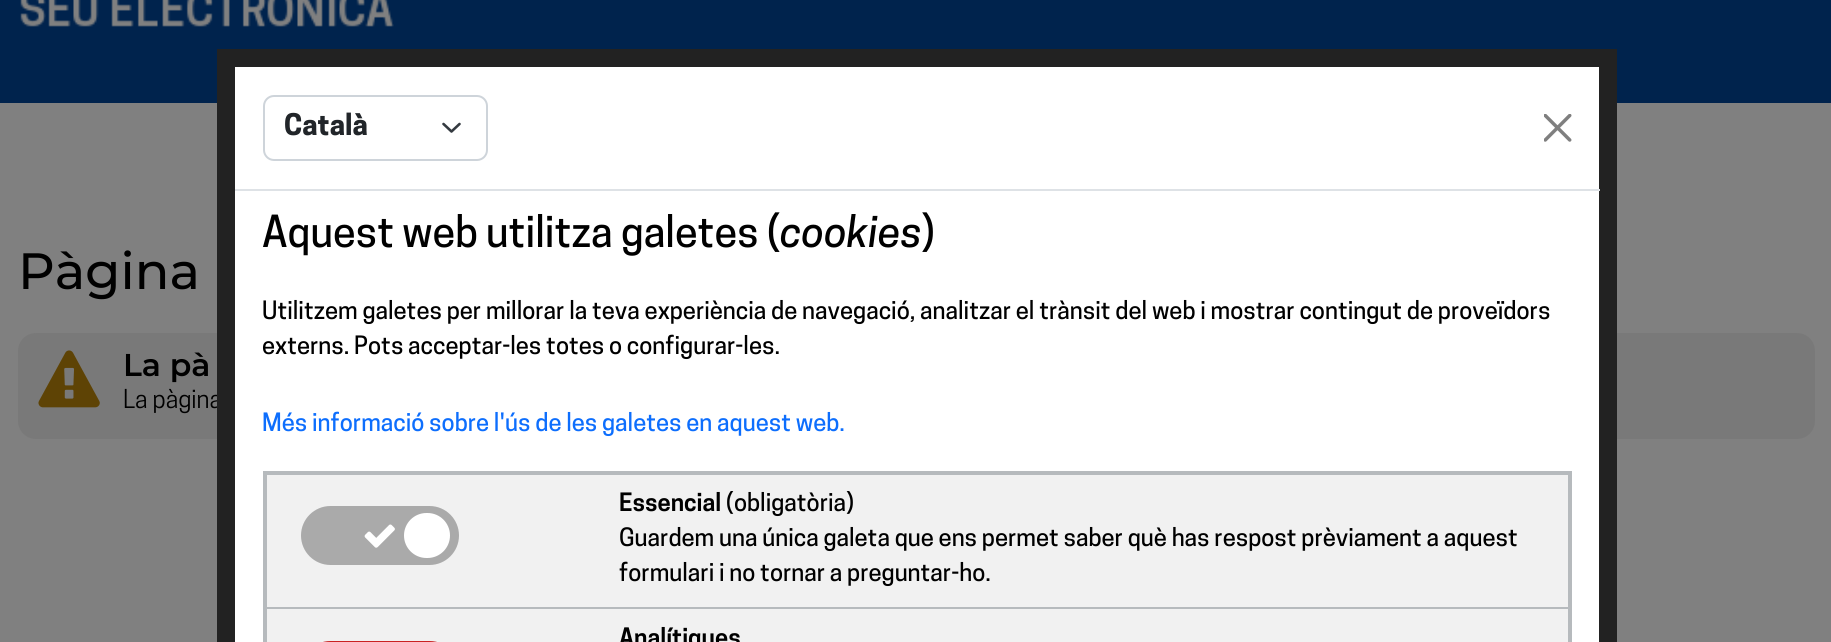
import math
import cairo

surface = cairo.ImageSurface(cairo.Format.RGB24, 1831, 642)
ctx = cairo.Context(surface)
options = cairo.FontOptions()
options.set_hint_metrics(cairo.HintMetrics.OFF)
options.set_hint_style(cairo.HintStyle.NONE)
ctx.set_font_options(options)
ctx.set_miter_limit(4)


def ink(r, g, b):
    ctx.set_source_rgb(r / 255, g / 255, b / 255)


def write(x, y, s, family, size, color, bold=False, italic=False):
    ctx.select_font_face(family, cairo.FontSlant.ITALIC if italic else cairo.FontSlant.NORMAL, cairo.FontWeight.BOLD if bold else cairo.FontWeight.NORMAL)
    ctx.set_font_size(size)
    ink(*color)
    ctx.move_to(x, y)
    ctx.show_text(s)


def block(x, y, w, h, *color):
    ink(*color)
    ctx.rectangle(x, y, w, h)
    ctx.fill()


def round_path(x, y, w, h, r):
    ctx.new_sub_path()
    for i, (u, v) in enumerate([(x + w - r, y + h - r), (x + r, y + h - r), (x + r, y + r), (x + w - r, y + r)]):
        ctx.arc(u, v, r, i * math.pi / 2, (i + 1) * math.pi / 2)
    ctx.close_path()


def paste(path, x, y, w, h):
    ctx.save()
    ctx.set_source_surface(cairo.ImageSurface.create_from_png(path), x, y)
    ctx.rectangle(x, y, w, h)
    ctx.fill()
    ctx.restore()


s1 = dict(family="Montserrat Medium", size=51, color=(0, 0, 0))
s2 = dict(family="Montserrat SemiBold", size=31.5, color=(0, 0, 0))
s3 = dict(family="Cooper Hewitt", size=24.5, color=(0, 0, 0))
s4 = dict(family="Cooper Hewitt", size=28, color=(33, 37, 41), bold=True)
s5 = dict(family="Cooper Hewitt Medium", size=41.25, color=(0, 0, 0))
s6 = dict(family="Cooper Hewitt Medium", size=41.25, color=(0, 0, 0), italic=True)
s7 = dict(family="Cooper Hewitt Medium", size=23.8, color=(0, 0, 0))
s8 = dict(family="Cooper Hewitt Medium", size=23.8, color=(13, 110, 253))
s9 = dict(family="Cooper Hewitt SemiBold", size=23.8, color=(0, 0, 0))

ink(128, 128, 128)
ctx.paint()
block(0, 0, 1831, 103, 0, 35, 77)
paste("pic1.png", 20, 0, 374, 27)
write(18, 289, "Pàgina", **s1)
ink(121, 121, 121)
round_path(18, 333, 1797, 106, 18)
ctx.fill()
paste("pic2.png", 38, 350, 62, 58)
write(123, 376, "La pà", **s2)
write(123, 408, "La pàgina", **s3)
ink(255, 255, 255)
ctx.rectangle(226, 58, 1382, 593)
ctx.fill_preserve()
ink(34, 34, 34)
ctx.set_line_width(18)
ctx.stroke()
block(235, 189, 1365, 2, 222, 226, 230)
ctx.new_path()
ctx.move_to(443.5, 124)
ctx.line_to(451.5, 131.5)
ctx.line_to(459.5, 124)
ink(52, 58, 64)
ctx.set_line_width(2.6)
ctx.set_line_cap(cairo.LineCap.ROUND)
ctx.set_line_join(cairo.LineJoin.ROUND)
ctx.stroke()
round_path(264, 96, 223, 64, 10)
ink(206, 212, 218)
ctx.set_line_width(2)
ctx.set_line_cap(cairo.LineCap.BUTT)
ctx.set_line_join(cairo.LineJoin.MITER)
ctx.stroke()
write(284, 135, "Català", **s4)
paste("pic3.png", 1544, 114, 28, 28)
write(262, 247, "Aquest web utilitza galetes (", **s5)
write(780, 247, "cookies", **s6)
write(921, 247, ")", **s5)
write(262, 319, "Utilitzem galetes per millorar la teva experiència de navegació, analitzar el trànsit del web i mostrar contingut de proveïdors", **s7)
write(262, 354, "externs. Pots acceptar-les totes o configurar-les.", **s7)
write(262, 431, "Més informació sobre l'ús de les galetes en aquest web.", **s8)
ink(241, 241, 241)
ctx.rectangle(265, 473, 1305, 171)
ctx.fill_preserve()
ink(182, 186, 189)
ctx.set_line_width(4)
ctx.stroke()
block(266, 607, 1302, 2, 182, 186, 189)
ink(170, 170, 170)
round_path(301, 506, 158, 59, 29.5)
ctx.fill()
paste("pic4.png", 364, 524, 31, 24)
ink(255, 255, 255)
round_path(404, 513, 46, 45, 22.5)
ctx.fill()
write(619, 511, "Essencial", **s9)
write(726, 511, "(obligatòria)", **s7)
write(619, 546, "Guardem una única galeta que ens permet saber què has respost prèviament a aquest", **s7)
write(619, 581, "formulari i no tornar a preguntar-ho.", **s7)
ink(202, 34, 34)
ctx.new_path()
ctx.move_to(330.5, 641)
ctx.line_to(429.5, 641)
ctx.curve_to(446, 641, 459, 654, 459, 670.5)
ctx.line_to(459, 642)
ctx.line_to(301, 642)
ctx.line_to(301, 670.5)
ctx.curve_to(301, 654, 314, 641, 330.5, 641)
ctx.close_path()
ctx.fill()
write(619, 646, "Analítiques", **s9)
surface.write_to_png("screenshot.png")
